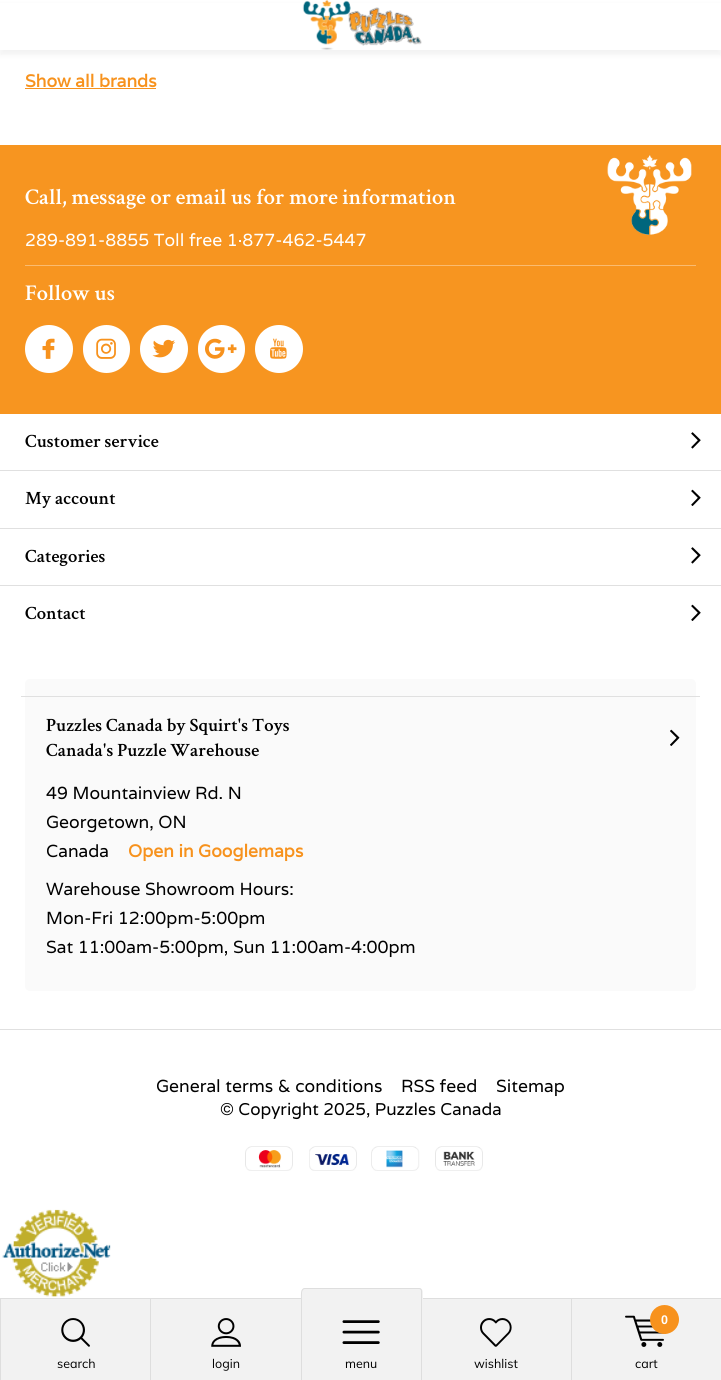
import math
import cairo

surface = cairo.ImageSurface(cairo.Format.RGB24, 721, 1380)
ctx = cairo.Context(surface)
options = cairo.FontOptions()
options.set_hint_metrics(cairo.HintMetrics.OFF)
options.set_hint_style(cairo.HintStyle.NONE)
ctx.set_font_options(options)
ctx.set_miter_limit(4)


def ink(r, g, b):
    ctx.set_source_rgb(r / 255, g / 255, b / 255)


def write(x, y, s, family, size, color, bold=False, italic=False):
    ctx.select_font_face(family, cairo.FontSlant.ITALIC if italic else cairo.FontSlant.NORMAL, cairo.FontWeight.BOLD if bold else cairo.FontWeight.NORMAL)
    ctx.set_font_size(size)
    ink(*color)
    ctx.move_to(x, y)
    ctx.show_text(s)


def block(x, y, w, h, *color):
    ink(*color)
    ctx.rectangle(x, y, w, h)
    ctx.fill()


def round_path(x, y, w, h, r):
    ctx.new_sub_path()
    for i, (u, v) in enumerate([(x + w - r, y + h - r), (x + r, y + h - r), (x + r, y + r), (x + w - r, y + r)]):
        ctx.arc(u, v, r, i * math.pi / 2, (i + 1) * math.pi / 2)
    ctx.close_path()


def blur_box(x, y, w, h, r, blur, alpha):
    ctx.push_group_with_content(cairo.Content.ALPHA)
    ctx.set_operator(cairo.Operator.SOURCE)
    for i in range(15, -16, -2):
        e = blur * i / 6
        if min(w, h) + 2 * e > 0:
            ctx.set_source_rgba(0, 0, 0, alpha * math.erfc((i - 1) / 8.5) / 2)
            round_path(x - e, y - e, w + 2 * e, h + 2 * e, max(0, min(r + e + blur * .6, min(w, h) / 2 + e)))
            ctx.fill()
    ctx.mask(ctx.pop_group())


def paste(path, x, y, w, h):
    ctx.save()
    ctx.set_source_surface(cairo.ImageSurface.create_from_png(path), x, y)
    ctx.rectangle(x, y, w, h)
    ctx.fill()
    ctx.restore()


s1 = dict(family="Varela", size=17.5, color=(247, 146, 29), bold=True)
s2 = dict(family="Crimson Text SemiBold", size=22.5, color=(255, 255, 255))
s3 = dict(family="Varela", size=17.5, color=(255, 255, 255))
s4 = dict(family="Crimson Text SemiBold", size=18.75, color=(0, 0, 0))
s5 = dict(family="Varela", size=17.5, color=(0, 0, 0))
s6 = dict(family="Varela", size=17, color=(0, 0, 0))
s7 = dict(family="Muli", size=12.5, color=(0, 0, 0))
s8 = dict(family="Liberation Sans", size=12.5, color=(255, 255, 255), bold=True)

ink(255, 255, 255)
ctx.paint()
write(25, 87, "Show all brands", **s1)
block(25, 88, 131, 1, 247, 146, 29)
block(0, 145, 721, 269, 247, 149, 32)
block(25, 265, 671, 1, 250, 187, 112)
write(25, 204, "Call, message or email us for more information", **s2)
paste("pic1.png", 607, 154, 85, 81)
write(25, 246, "289-891-8855 Toll free 1·877-462-5447", **s3)
write(25, 300, "Follow us", **s2)
ctx.new_path()
ctx.arc(49, 349, 24, 0, 2 * math.pi)
ctx.fill()
paste("pic2.png", 42, 338, 13, 21)
round_path(83, 325, 47, 48, 23.5)
ctx.fill()
paste("pic3.png", 96, 338, 20, 21)
ctx.arc(164, 349, 24, 0, 2 * math.pi)
ctx.fill()
paste("pic4.png", 152, 339, 24, 19)
round_path(198, 325, 47, 48, 23.5)
ctx.fill()
paste("pic5.png", 205, 338, 32, 21)
ctx.arc(279, 349, 24, 0, 2 * math.pi)
ctx.fill()
paste("pic6.png", 270, 338, 17, 21)
block(0, 1029, 721, 1, 224, 224, 224)
write(25, 447, "Customer service", **s4)
paste("pic7.png", 691, 432, 10, 17)
block(0, 470, 721, 1, 224, 224, 224)
write(25, 504, "My account", **s4)
paste("pic8.png", 691, 489, 10, 17)
block(0, 528, 721, 1, 224, 224, 224)
write(25, 562, "Categories", **s4)
paste("pic7.png", 691, 547, 10, 17)
block(0, 585, 721, 1, 224, 224, 224)
write(25, 619, "Contact", **s4)
paste("pic8.png", 691, 604, 10, 17)
ink(250, 250, 250)
round_path(25, 679, 671, 312, 5)
ctx.fill()
block(21, 696, 679, 1, 224, 224, 224)
write(46, 731, "Puzzles Canada by Squirt's Toys", **s4)
paste("pic9.png", 670, 729, 10, 17)
write(46, 756, "Canada's Puzzle Warehouse", **s4)
write(46, 799, "49 Mountainview Rd. N", **s5)
write(46, 828, "Georgetown, ON", **s5)
write(46, 857, "Canada", **s5)
write(128, 857, "Open in Googlemaps", **s1)
write(46, 895, "Warehouse Showroom Hours:", **s5)
write(46, 924, "Mon-Fri 12:00pm-5:00pm", **s5)
write(46, 953, "Sat 11:00am-5:00pm, Sun 11:00am-4:00pm", **s5)
write(156, 1092, "General terms & conditions", **s5)
write(401, 1092, "RSS feed", **s5)
write(496, 1092, "Sitemap", **s5)
write(220, 1115, "© Copyright 2025, Puzzles Canada", **s6)
paste("pic10.png", 245, 1146, 48, 25)
paste("pic11.png", 309, 1146, 48, 25)
paste("pic12.png", 371, 1146, 49, 25)
paste("pic13.png", 435, 1146, 48, 25)
paste("pic14.png", 2, 1209, 109, 88)
ink(0, 0, 0)
blur_box(0, 5, 721, 50, 0, 2.5, 0.05)
block(0, 3, 721, 47, 255, 255, 255)
paste("pic15.png", 302, 0, 120, 50)
block(1, 1299, 720, 81, 242, 242, 242)
block(0, 1298, 301, 1, 222, 222, 222)
block(0, 1298, 1, 82, 222, 222, 222)
paste("pic16.png", 61, 1318, 29, 29)
write(57, 1368, "search", **s7)
block(150, 1298, 1, 82, 222, 222, 222)
paste("pic17.png", 211, 1318, 30, 29)
write(212, 1368, "login", **s7)
block(301, 1298, 1, 82, 222, 222, 222)
block(421, 1298, 300, 1, 222, 222, 222)
block(421, 1298, 1, 82, 222, 222, 222)
ink(242, 242, 242)
ctx.new_path()
ctx.move_to(305, 1288)
ctx.line_to(419, 1288)
ctx.curve_to(421, 1288, 423, 1290, 423, 1292)
ctx.line_to(423, 1299)
ctx.line_to(301, 1299)
ctx.line_to(301, 1292)
ctx.curve_to(301, 1290, 303, 1288, 305, 1288)
ctx.close_path()
ctx.fill()
ink(222, 222, 222)
ctx.set_fill_rule(cairo.FillRule.EVEN_ODD)
ctx.new_path()
ctx.move_to(305, 1288)
ctx.line_to(419, 1288)
ctx.curve_to(421, 1288, 422, 1289, 422, 1291)
ctx.line_to(422, 1299)
ctx.line_to(301, 1299)
ctx.curve_to(301, 1296, 300, 1288, 305, 1288)
ctx.close_path()
ctx.move_to(305, 1289)
ctx.line_to(419, 1289)
ctx.curve_to(420, 1289, 421, 1290, 421, 1291)
ctx.line_to(421, 1299)
ctx.line_to(302, 1299)
ctx.curve_to(302, 1296, 301, 1289, 305, 1289)
ctx.close_path()
ctx.fill()
paste("pic18.png", 342, 1320, 38, 24)
write(345, 1368, "menu", **s7)
paste("pic19.png", 480, 1318, 32, 29)
write(474, 1368, "wishlist", **s7)
block(571, 1298, 1, 82, 222, 222, 222)
paste("pic20.png", 625, 1315, 41, 32)
ink(247, 146, 29)
ctx.arc(664.5, 1319.5, 14.5, 0, 2 * math.pi)
ctx.fill()
write(661, 1324, "0", **s8)
write(635, 1368, "cart", **s7)
surface.write_to_png("screenshot.png")
